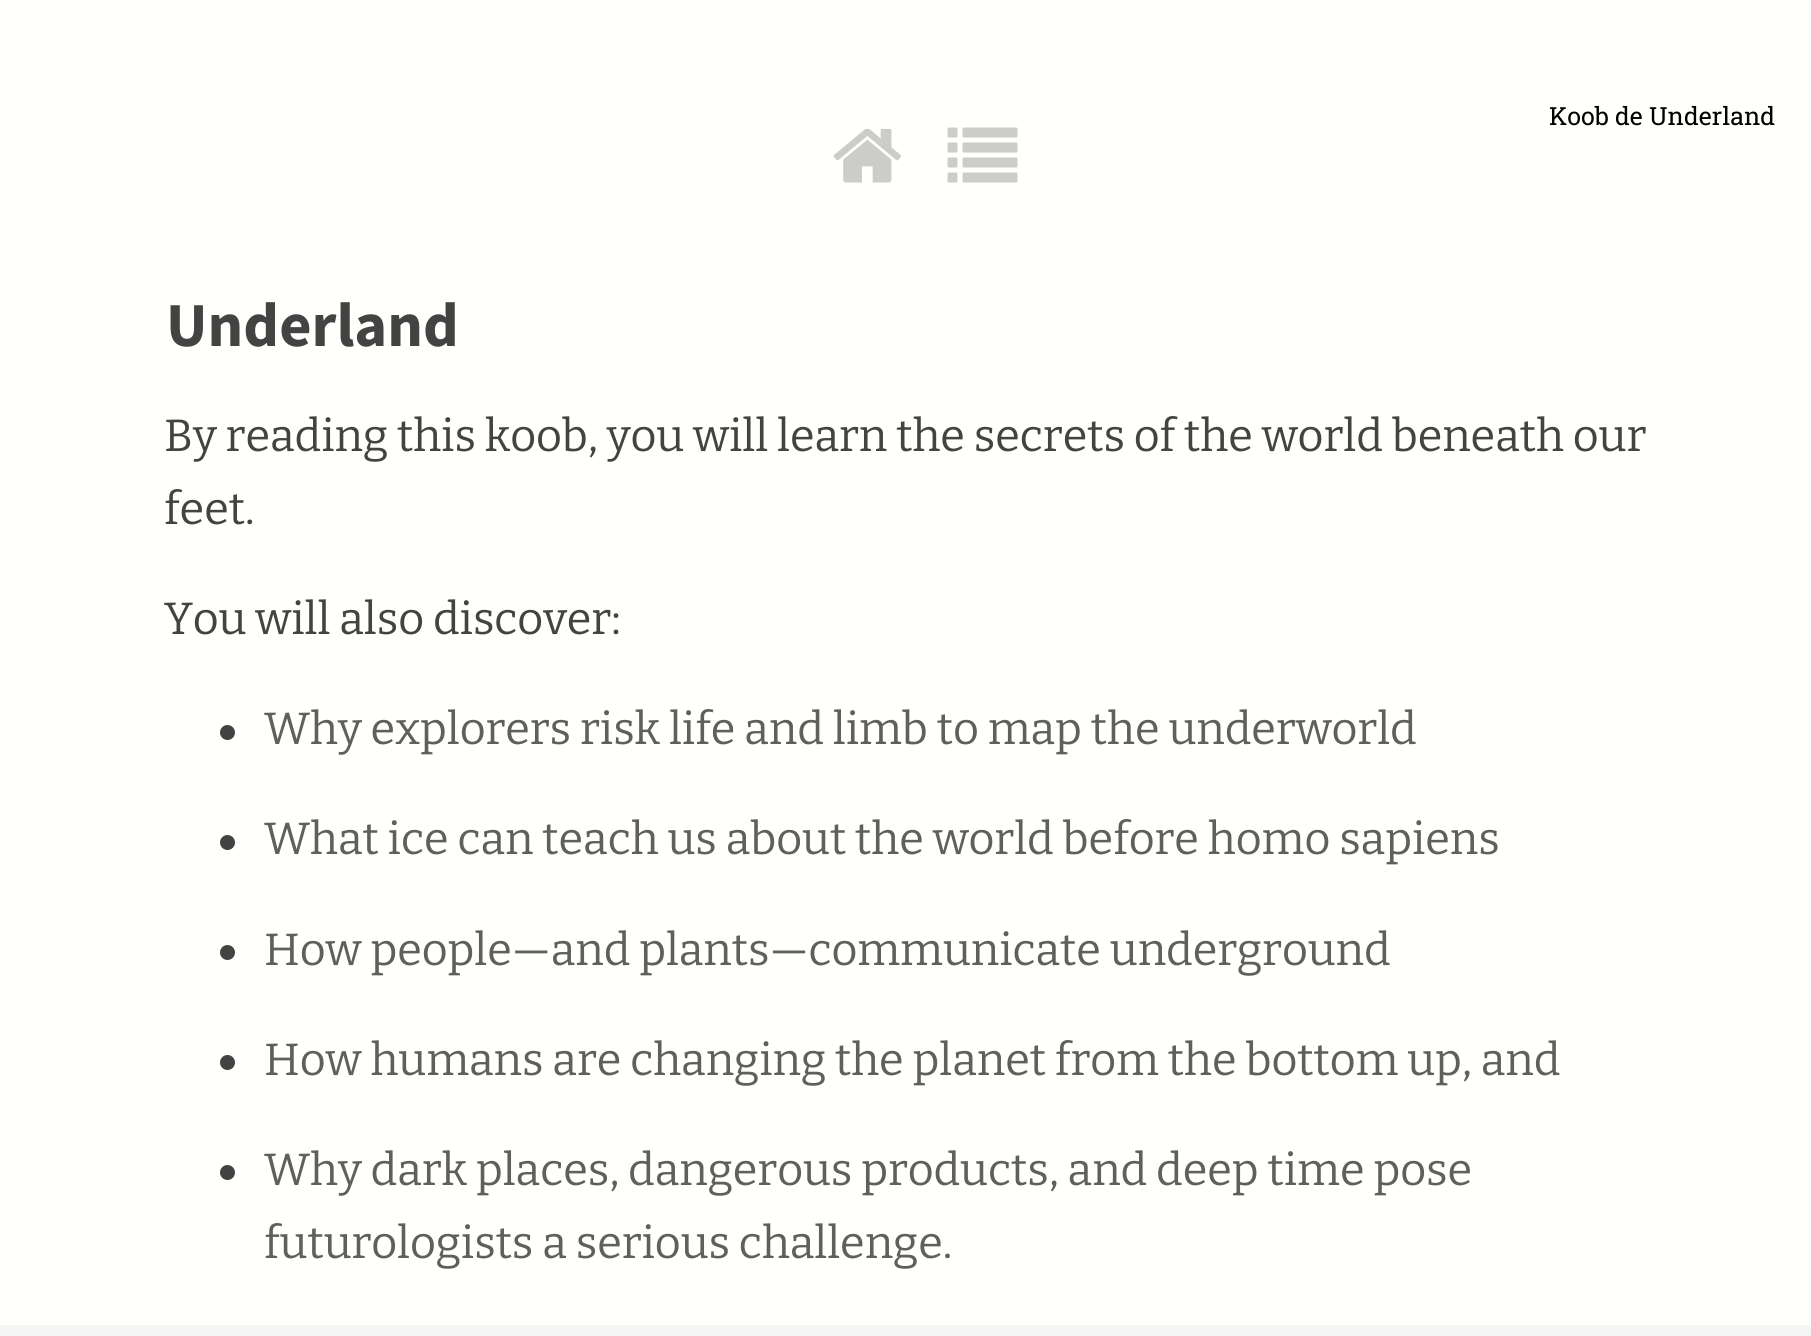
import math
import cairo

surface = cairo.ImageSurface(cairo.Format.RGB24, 1811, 1336)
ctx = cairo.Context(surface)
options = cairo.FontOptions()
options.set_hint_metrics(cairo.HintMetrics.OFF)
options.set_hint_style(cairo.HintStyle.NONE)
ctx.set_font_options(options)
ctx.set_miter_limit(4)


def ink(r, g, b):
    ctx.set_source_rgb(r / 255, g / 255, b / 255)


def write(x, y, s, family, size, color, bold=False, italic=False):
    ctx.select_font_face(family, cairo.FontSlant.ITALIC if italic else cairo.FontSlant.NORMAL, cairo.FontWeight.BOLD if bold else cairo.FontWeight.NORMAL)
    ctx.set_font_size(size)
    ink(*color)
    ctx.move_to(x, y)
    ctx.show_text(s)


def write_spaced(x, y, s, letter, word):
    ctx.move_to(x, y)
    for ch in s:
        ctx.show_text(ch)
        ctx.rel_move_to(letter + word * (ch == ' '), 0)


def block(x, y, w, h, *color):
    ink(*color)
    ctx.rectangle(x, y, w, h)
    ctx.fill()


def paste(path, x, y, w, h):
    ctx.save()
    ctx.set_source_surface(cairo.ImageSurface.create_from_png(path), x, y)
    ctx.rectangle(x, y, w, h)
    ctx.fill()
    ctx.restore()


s1 = dict(family="Roboto Slab", size=25, color=(0, 0, 0))
s2 = dict(family="Source Sans Pro", size=62.5, color=(67, 67, 67), bold=True)

ink(255, 255, 252)
ctx.paint()
write(1549, 125, "Koob de Underland", **s1)
write(166, 346, "Underland", **s2)
ctx.select_font_face("Bitter Thin")
ctx.set_font_size(45)
write_spaced(164, 451, "By reading this koob, you will learn the secrets of the world beneath our", -0.07, 0)
write_spaced(164, 524, "feet.", -0.07, 0)
write_spaced(164, 634, "You will also discover:", -0.07, 0)
ctx.new_path()
ctx.arc(227.5, 732.5, 7.5, 0, 2 * math.pi)
ctx.fill()
ink(95, 95, 94)
write_spaced(264, 744, "Why explorers risk life and limb to map the underworld", -0.07, 0)
ink(67, 67, 67)
ctx.new_path()
ctx.arc(227.5, 842.5, 7.5, 0, 2 * math.pi)
ctx.fill()
ink(95, 95, 94)
write_spaced(264, 854, "What ice can teach us about the world before homo sapiens", -0.07, 0)
ink(67, 67, 67)
ctx.new_path()
ctx.arc(227.5, 952.5, 7.5, 0, 2 * math.pi)
ctx.fill()
ink(95, 95, 94)
write_spaced(264, 965, "How people—and plants—communicate underground", -0.07, 0)
ink(67, 67, 67)
ctx.new_path()
ctx.arc(227.5, 1062.5, 7.5, 0, 2 * math.pi)
ctx.fill()
ink(95, 95, 94)
write_spaced(264, 1075, "How humans are changing the planet from the bottom up, and", -0.07, 0)
ink(67, 67, 67)
ctx.new_path()
ctx.arc(227.5, 1172.5, 7.5, 0, 2 * math.pi)
ctx.fill()
ink(95, 95, 94)
write_spaced(264, 1185, "Why dark places, dangerous products, and deep time pose", -0.07, 0)
write_spaced(264, 1258, "futurologists a serious challenge.", -0.07, 0)
paste("pic1.png", 833, 128, 68, 55)
paste("pic2.png", 947, 127, 71, 56)
block(0, 1325, 1811, 11, 245, 245, 245)
surface.write_to_png("screenshot.png")
